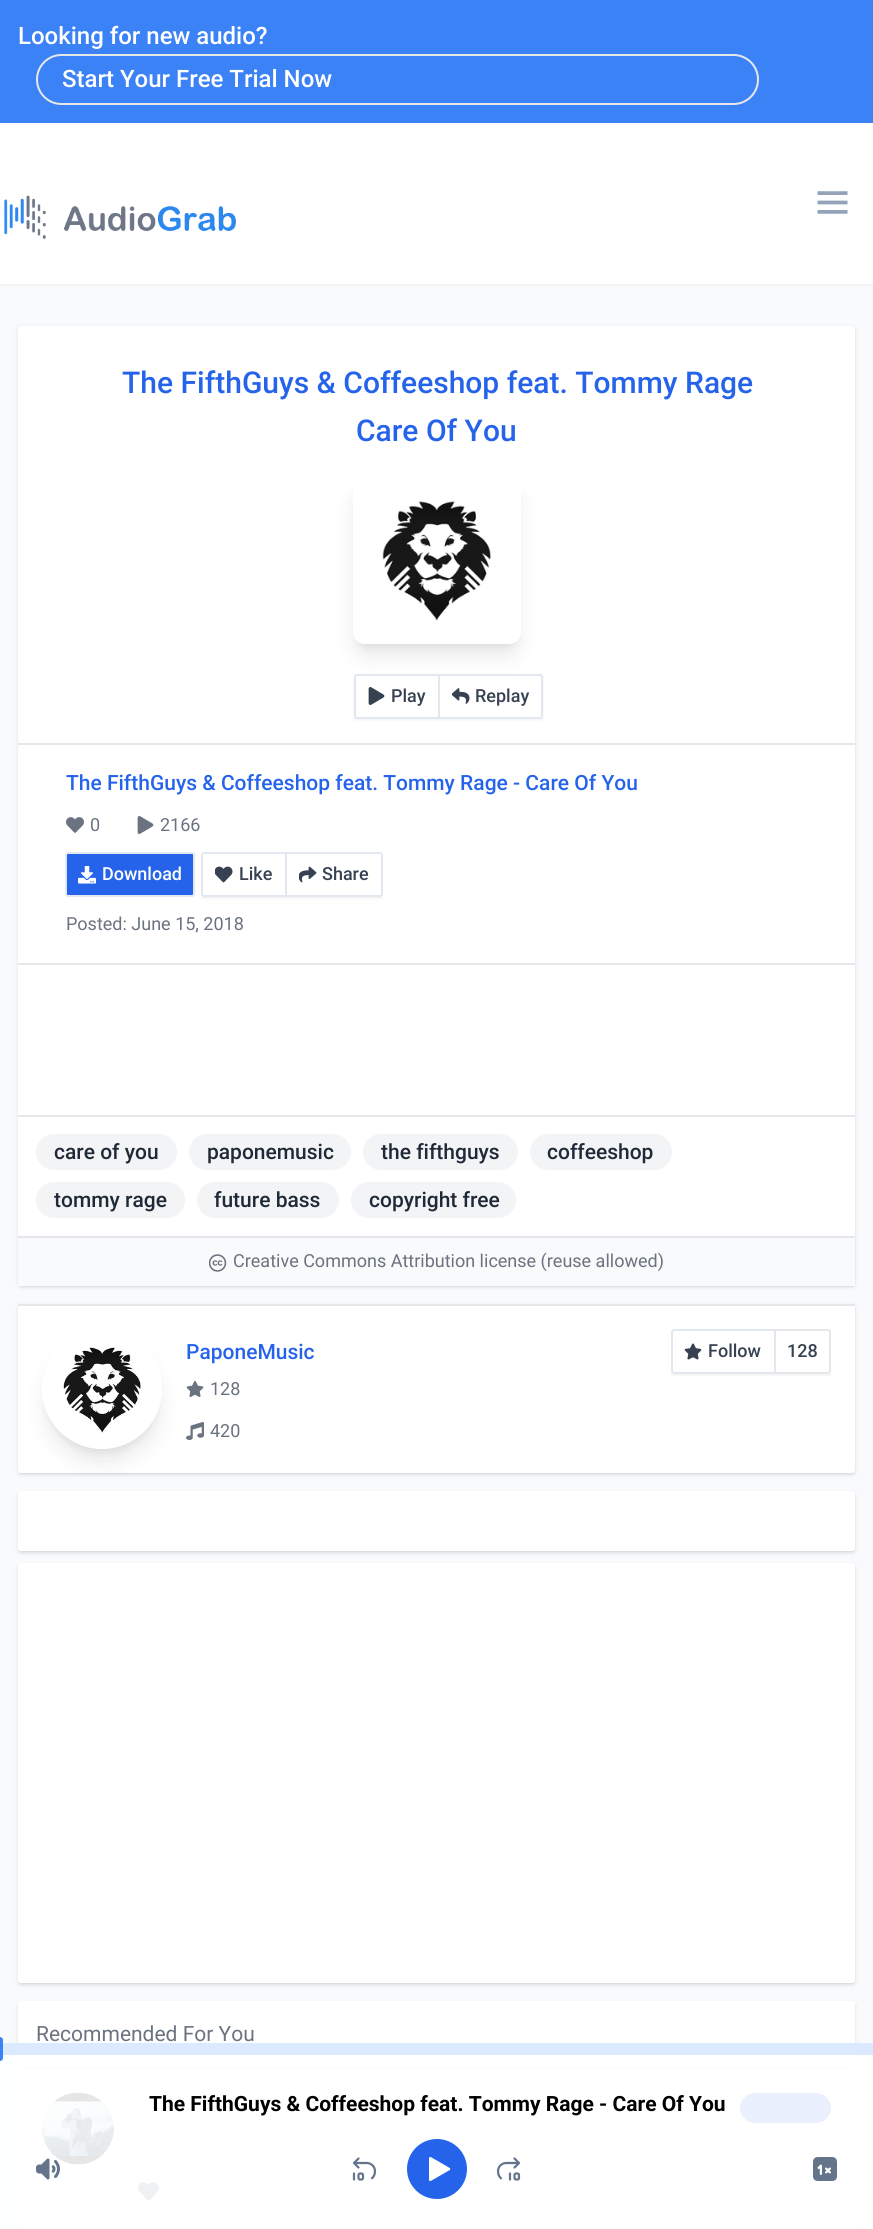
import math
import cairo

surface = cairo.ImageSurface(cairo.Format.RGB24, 873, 2229)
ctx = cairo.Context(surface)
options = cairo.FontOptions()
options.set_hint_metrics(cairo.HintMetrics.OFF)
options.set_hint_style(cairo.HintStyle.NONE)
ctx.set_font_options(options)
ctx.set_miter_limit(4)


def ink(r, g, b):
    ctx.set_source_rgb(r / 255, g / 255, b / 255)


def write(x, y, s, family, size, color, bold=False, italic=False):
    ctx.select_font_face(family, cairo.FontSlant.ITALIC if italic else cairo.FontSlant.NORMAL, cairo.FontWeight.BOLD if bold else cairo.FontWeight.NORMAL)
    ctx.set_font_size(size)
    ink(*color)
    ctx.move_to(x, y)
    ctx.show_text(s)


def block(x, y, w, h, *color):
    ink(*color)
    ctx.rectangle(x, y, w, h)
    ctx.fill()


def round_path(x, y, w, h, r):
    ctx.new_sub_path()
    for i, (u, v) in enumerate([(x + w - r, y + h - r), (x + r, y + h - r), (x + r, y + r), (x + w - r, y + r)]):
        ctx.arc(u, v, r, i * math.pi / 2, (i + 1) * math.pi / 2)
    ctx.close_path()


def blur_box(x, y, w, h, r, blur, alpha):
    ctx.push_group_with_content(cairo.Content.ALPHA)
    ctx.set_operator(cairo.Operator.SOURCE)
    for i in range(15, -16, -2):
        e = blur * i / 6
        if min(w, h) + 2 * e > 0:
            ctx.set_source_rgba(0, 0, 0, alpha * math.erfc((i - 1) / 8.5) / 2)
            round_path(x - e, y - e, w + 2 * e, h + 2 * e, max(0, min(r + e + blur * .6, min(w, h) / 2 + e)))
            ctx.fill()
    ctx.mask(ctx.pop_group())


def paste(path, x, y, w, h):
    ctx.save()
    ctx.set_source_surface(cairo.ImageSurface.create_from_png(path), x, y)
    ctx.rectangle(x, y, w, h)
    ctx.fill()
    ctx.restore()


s1 = dict(family="Roboto Medium", size=24, color=(255, 255, 255))
s2 = dict(family="Roboto Medium", size=30, color=(37, 99, 235))
s3 = dict(family="Roboto Medium", size=18, color=(55, 65, 81))
s4 = dict(family="Roboto Medium", size=21, color=(37, 99, 235))
s5 = dict(family="Roboto", size=18, color=(107, 114, 128))
s6 = dict(family="Roboto Medium", size=18, color=(255, 255, 255))
s7 = dict(family="Roboto Medium", size=21, color=(31, 41, 55))
s8 = dict(family="Roboto", size=21, color=(107, 114, 128))
s9 = dict(family="Roboto", size=21, color=(0, 0, 0), bold=True)

ink(248, 250, 252)
ctx.paint()
ink(0, 0, 0)
blur_box(0, 125, 873, 160, 0, 1.5, 0.05)
block(0, 0, 873, 123, 59, 130, 246)
write(18, 44, "Looking for new audio?", **s1)
round_path(37, 55, 721, 49, 24.5)
ink(229, 231, 235)
ctx.stroke()
write(62, 87, "Start Your Free Trial Now", **s1)
block(0, 123, 873, 161, 255, 255, 255)
paste("pic1.png", 4, 195, 232, 44)
paste("pic2.png", 817, 191, 31, 23)
ink(0, 0, 0)
blur_box(20, 329, 834, 957, 1.5, 1.5, 0.1)
blur_box(18, 327, 837, 960, 3, 2, 0.1)
ink(255, 255, 255)
round_path(18, 326, 837, 960, 3)
ctx.fill()
write(122, 393, "The FifthGuys & Coffeeshop feat. Tommy Rage", **s2)
write(356, 441, "Care Of You", **s2)
ctx.save()
ctx.set_fill_rule(cairo.FillRule.EVEN_ODD)
ctx.new_path()
ctx.move_to(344, 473)
ctx.line_to(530, 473)
ctx.line_to(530, 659)
ctx.line_to(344, 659)
ctx.close_path()
ctx.move_to(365, 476)
ctx.line_to(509, 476)
ctx.curve_to(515.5, 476, 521, 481.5, 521, 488)
ctx.line_to(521, 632)
ctx.curve_to(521, 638.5, 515.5, 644, 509, 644)
ctx.line_to(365, 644)
ctx.curve_to(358.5, 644, 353, 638.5, 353, 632)
ctx.line_to(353, 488)
ctx.curve_to(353, 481.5, 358.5, 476, 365, 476)
ctx.close_path()
ctx.clip()
ink(0, 0, 0)
blur_box(359, 488, 156, 156, 6, 4.5, 0.1)
ctx.restore()
ctx.save()
ctx.set_fill_rule(cairo.FillRule.EVEN_ODD)
ctx.new_path()
ctx.move_to(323, 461)
ctx.line_to(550, 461)
ctx.line_to(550, 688)
ctx.line_to(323, 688)
ctx.close_path()
ctx.move_to(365, 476)
ctx.line_to(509, 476)
ctx.curve_to(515.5, 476, 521, 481.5, 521, 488)
ctx.line_to(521, 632)
ctx.curve_to(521, 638.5, 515.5, 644, 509, 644)
ctx.line_to(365, 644)
ctx.curve_to(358.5, 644, 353, 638.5, 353, 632)
ctx.line_to(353, 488)
ctx.curve_to(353, 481.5, 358.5, 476, 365, 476)
ctx.close_path()
ctx.clip()
ink(0, 0, 0)
blur_box(357, 495, 159, 159, 8, 11, 0.1)
ctx.restore()
paste("pic3.png", 382, 501, 109, 120)
ink(0, 0, 0)
blur_box(354, 675, 189, 45, 0, 1.5, 0.05)
ink(255, 255, 255)
ctx.new_path()
ctx.move_to(357, 675)
ctx.line_to(439, 675)
ctx.line_to(439, 718)
ctx.line_to(357, 718)
ctx.curve_to(356, 718, 355, 717, 355, 716)
ctx.line_to(355, 677)
ctx.curve_to(355, 676, 356, 675, 357, 675)
ctx.close_path()
ctx.fill_preserve()
ink(226, 232, 240)
ctx.stroke()
paste("pic4.png", 368, 687, 17, 18)
write(391, 702, "Play", **s3)
ink(255, 255, 255)
ctx.new_path()
ctx.move_to(439, 675)
ctx.line_to(540, 675)
ctx.curve_to(541, 675, 542, 676, 542, 677)
ctx.line_to(542, 716)
ctx.curve_to(542, 717, 541, 718, 540, 718)
ctx.line_to(439, 718)
ctx.close_path()
ctx.fill_preserve()
ink(226, 232, 240)
ctx.stroke()
paste("pic5.png", 452, 688, 18, 16)
write(475, 702, "Replay", **s3)
block(18, 743, 837, 2, 229, 231, 235)
write(66, 790, "The FifthGuys & Coffeeshop feat. Tommy Rage - Care Of You", **s4)
paste("pic6.png", 66, 817, 18, 16)
write(90, 831, "0", **s5)
paste("pic7.png", 137, 816, 17, 18)
write(160, 831, "2166", **s5)
ink(37, 99, 235)
round_path(66, 853, 128, 43, 2)
ctx.fill_preserve()
ink(226, 232, 240)
ctx.stroke()
paste("pic8.png", 78, 866, 18, 18)
write(102, 880, "Download", **s6)
ctx.save()
ctx.rectangle(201, 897, 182, 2)
ctx.clip()
ink(0, 0, 0)
blur_box(201, 854, 182, 45, 0, 1.5, 0.05)
ctx.restore()
ctx.new_path()
ctx.move_to(204, 853)
ctx.line_to(286, 853)
ctx.line_to(286, 896)
ctx.line_to(204, 896)
ctx.curve_to(203, 896, 202, 895, 202, 894)
ctx.line_to(202, 855)
ctx.curve_to(202, 854, 203, 853, 204, 853)
ctx.close_path()
ink(226, 232, 240)
ctx.stroke()
paste("pic9.png", 215, 866, 18, 17)
write(239, 880, "Like", **s3)
ink(255, 255, 255)
ctx.new_path()
ctx.move_to(286, 853)
ctx.line_to(380, 853)
ctx.curve_to(381, 853, 382, 854, 382, 855)
ctx.line_to(382, 894)
ctx.curve_to(382, 895, 381, 896, 380, 896)
ctx.line_to(286, 896)
ctx.close_path()
ctx.fill_preserve()
ink(226, 232, 240)
ctx.stroke()
paste("pic10.png", 299, 866, 18, 17)
write(322, 880, "Share", **s3)
write(66, 930, "Posted: June 15, 2018", **s5)
block(18, 963, 837, 2, 229, 231, 235)
block(18, 1115, 837, 2, 229, 231, 235)
ink(243, 244, 246)
round_path(36, 1134, 141, 36, 18)
ctx.fill()
write(54, 1159, "care of you", **s7)
ink(243, 244, 246)
round_path(189, 1134, 162, 36, 18)
ctx.fill()
write(207, 1159, "paponemusic", **s7)
ink(243, 244, 246)
round_path(363, 1134, 155, 36, 18)
ctx.fill()
write(381, 1159, "the fifthguys", **s7)
ink(243, 244, 246)
round_path(530, 1134, 142, 36, 18)
ctx.fill()
write(547, 1159, "coffeeshop", **s7)
ink(243, 244, 246)
round_path(36, 1182, 149, 36, 18)
ctx.fill()
write(54, 1207, "tommy rage", **s7)
ink(243, 244, 246)
round_path(197, 1182, 142, 36, 18)
ctx.fill()
write(214, 1207, "future bass", **s7)
ink(243, 244, 246)
round_path(351, 1182, 165, 36, 18)
ctx.fill()
write(369, 1207, "copyright free", **s7)
block(18, 1238, 837, 48, 249, 250, 251)
block(18, 1236, 837, 2, 229, 231, 235)
paste("pic11.png", 209, 1254, 18, 18)
write(233, 1267, "Creative Commons Attribution license (reuse allowed)", **s5)
ink(0, 0, 0)
blur_box(20, 1307, 834, 166, 1.5, 1.5, 0.1)
blur_box(18, 1305, 837, 170, 3, 2, 0.1)
ink(255, 255, 255)
round_path(18, 1304, 837, 169, 3)
ctx.fill()
block(18, 1304, 837, 2, 229, 231, 235)
ctx.save()
ctx.set_fill_rule(cairo.FillRule.EVEN_ODD)
ctx.new_path()
ctx.move_to(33, 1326)
ctx.line_to(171, 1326)
ctx.line_to(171, 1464)
ctx.line_to(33, 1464)
ctx.close_path()
ctx.move_to(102, 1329)
ctx.curve_to(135, 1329, 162, 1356, 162, 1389)
ctx.curve_to(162, 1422, 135, 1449, 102, 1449)
ctx.curve_to(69, 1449, 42, 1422, 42, 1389)
ctx.curve_to(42, 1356, 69, 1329, 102, 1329)
ctx.close_path()
ctx.clip()
ink(0, 0, 0)
blur_box(48, 1341, 108, 108, 54, 4.5, 0.1)
ctx.restore()
ctx.save()
ctx.set_fill_rule(cairo.FillRule.EVEN_ODD)
ctx.new_path()
ctx.move_to(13, 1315)
ctx.line_to(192, 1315)
ctx.line_to(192, 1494)
ctx.line_to(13, 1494)
ctx.close_path()
ctx.move_to(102, 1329)
ctx.curve_to(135, 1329, 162, 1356, 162, 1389)
ctx.curve_to(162, 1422, 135, 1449, 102, 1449)
ctx.curve_to(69, 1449, 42, 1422, 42, 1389)
ctx.curve_to(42, 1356, 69, 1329, 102, 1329)
ctx.close_path()
ctx.clip()
ink(0, 0, 0)
blur_box(47, 1349, 111, 111, 55.5, 11, 0.1)
ctx.restore()
paste("pic12.png", 63, 1347, 78, 86)
write(186, 1359, "PaponeMusic", **s4)
ctx.save()
ctx.rectangle(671, 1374, 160, 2)
ctx.clip()
ink(0, 0, 0)
blur_box(671, 1331, 160, 45, 0, 1.5, 0.05)
ctx.restore()
ctx.new_path()
ctx.move_to(674, 1330)
ctx.line_to(775, 1330)
ctx.line_to(775, 1373)
ctx.line_to(674, 1373)
ctx.curve_to(673, 1373, 672, 1372, 672, 1371)
ctx.line_to(672, 1332)
ctx.curve_to(672, 1331, 673, 1330, 674, 1330)
ctx.close_path()
ink(226, 232, 240)
ctx.stroke()
paste("pic13.png", 684, 1343, 18, 17)
write(708, 1357, "Follow", **s3)
ink(255, 255, 255)
ctx.new_path()
ctx.move_to(775, 1330)
ctx.line_to(828, 1330)
ctx.curve_to(829, 1330, 830, 1331, 830, 1332)
ctx.line_to(830, 1371)
ctx.curve_to(830, 1372, 829, 1373, 828, 1373)
ctx.line_to(775, 1373)
ctx.close_path()
ctx.fill_preserve()
ink(229, 231, 235)
ctx.stroke()
write(787, 1357, "128", **s3)
paste("pic14.png", 186, 1381, 18, 16)
write(210, 1395, "128", **s5)
paste("pic15.png", 186, 1422, 18, 18)
write(210, 1437, "420", **s5)
ink(0, 0, 0)
blur_box(20, 1494, 834, 57, 1.5, 1.5, 0.1)
blur_box(18, 1493, 837, 60, 3, 2, 0.1)
ink(255, 255, 255)
round_path(18, 1491, 837, 60, 3)
ctx.fill()
ink(0, 0, 0)
blur_box(20, 1566, 834, 417, 1.5, 1.5, 0.1)
blur_box(18, 1565, 837, 420, 3, 2, 0.1)
ink(255, 255, 255)
round_path(18, 1563, 837, 420, 3)
ctx.fill()
ink(0, 0, 0)
blur_box(18, 2003, 837, 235, 3, 2, 0.1)
ink(255, 255, 255)
round_path(18, 2001, 837, 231, 3)
ctx.fill()
write(36, 2041, "Recommended For You", **s8)
block(18, 2067, 837, 2, 229, 231, 235)
paste("pic16.png", 42, 2092, 72, 73)
ink(37, 99, 235)
round_path(740, 2093, 91, 30, 15)
ctx.fill()
paste("pic17.png", 138, 2182, 21, 19)
ctx.rectangle(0, 2055, 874, 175)
ctx.set_source_rgba(0.059, 0.09, 0.165, 0.05)
ctx.stroke()
ctx.set_source_rgba(1, 1, 1, 0.9)
ctx.rectangle(0, 2055, 873, 174)
ctx.fill()
block(3, 2043, 870, 12, 219, 234, 254)
ink(59, 130, 246)
round_path(-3, 2037, 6, 24, 3)
ctx.fill()
paste("pic18.png", 36, 2158, 24, 22)
paste("pic19.png", 352, 2157, 25, 24)
ink(37, 99, 235)
ctx.arc(437, 2169, 30, 0, 2 * math.pi)
ctx.fill()
paste("pic20.png", 429, 2156, 22, 25)
paste("pic21.png", 496, 2157, 25, 24)
paste("pic22.png", 813, 2157, 24, 24)
write(149, 2111, "The FifthGuys & Coffeeshop feat. Tommy Rage - Care Of You", **s9)
surface.write_to_png("screenshot.png")
